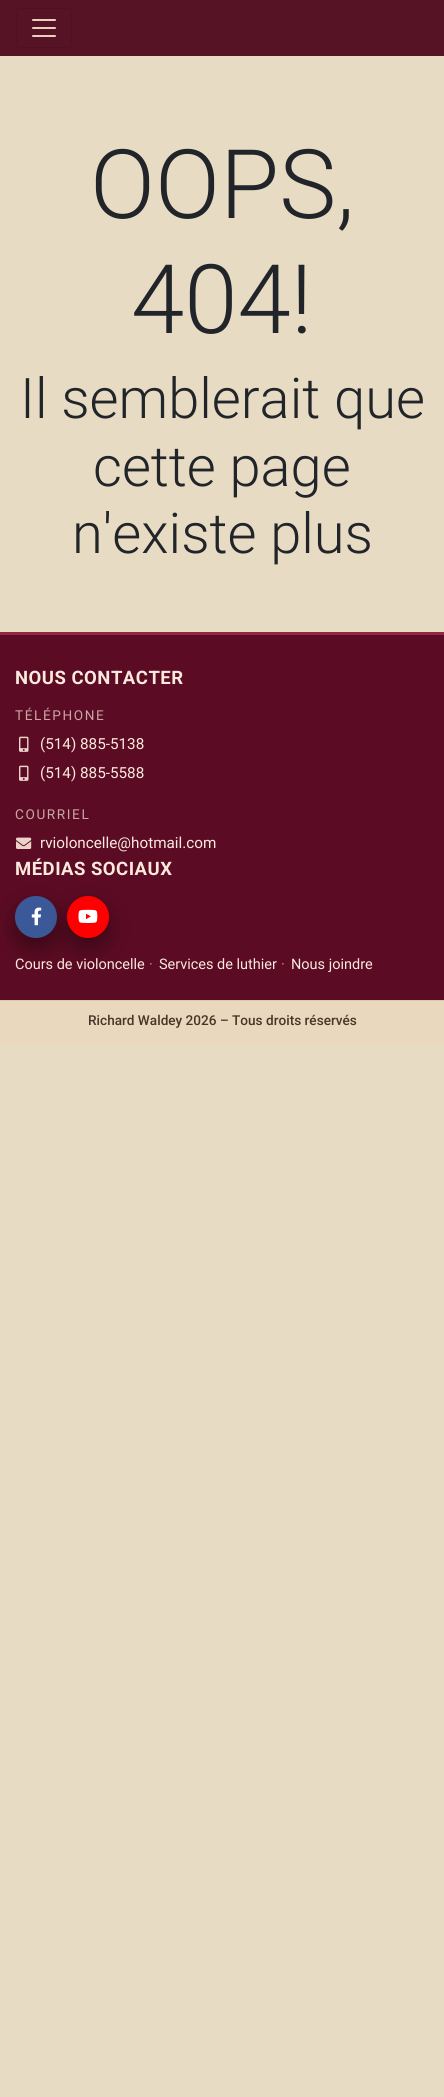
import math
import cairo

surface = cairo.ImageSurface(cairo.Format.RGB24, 444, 2097)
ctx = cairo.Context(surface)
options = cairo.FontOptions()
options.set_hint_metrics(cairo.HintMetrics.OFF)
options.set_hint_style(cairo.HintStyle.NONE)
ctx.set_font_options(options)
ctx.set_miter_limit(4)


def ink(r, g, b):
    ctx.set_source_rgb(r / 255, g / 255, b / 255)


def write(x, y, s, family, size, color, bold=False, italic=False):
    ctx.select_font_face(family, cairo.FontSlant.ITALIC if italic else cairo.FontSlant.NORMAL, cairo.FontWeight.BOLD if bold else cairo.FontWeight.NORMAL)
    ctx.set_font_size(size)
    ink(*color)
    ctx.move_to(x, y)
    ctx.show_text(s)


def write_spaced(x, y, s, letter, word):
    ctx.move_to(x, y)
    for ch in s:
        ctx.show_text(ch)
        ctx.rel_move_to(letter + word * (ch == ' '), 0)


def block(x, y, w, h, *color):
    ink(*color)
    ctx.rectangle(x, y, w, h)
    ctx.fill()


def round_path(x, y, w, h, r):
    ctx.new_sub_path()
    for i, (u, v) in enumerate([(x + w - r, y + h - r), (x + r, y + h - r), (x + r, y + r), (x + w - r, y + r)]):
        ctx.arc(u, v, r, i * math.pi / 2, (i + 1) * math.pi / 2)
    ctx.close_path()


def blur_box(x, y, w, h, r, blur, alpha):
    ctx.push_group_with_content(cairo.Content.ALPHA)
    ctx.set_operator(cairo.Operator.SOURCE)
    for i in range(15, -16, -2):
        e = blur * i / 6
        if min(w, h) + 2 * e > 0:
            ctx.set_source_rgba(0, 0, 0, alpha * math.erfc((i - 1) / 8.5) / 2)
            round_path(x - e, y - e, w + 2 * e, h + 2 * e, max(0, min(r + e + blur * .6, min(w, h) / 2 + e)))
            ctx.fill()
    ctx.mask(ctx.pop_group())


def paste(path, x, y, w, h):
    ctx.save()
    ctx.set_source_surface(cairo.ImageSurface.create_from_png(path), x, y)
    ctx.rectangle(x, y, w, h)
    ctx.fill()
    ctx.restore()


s1 = dict(family="Roboto Light", size=96, color=(33, 37, 41))
s2 = dict(family="Roboto Light", size=56, color=(33, 37, 41))
s3 = dict(family="Roboto", size=15.25, color=(251, 233, 221))
s4 = dict(family="Roboto", size=14.5, color=(251, 233, 221))
s5 = dict(family="Roboto", size=14.5, color=(187, 144, 147))
s6 = dict(family="Roboto Medium", size=13.6, color=(74, 52, 39))

ink(232, 219, 196)
ctx.paint()
block(0, 0, 444, 56, 86, 19, 38)
round_path(16.5, 8.5, 55, 39, 3.5)
ink(77, 17, 34)
ctx.set_line_width(1)
ctx.stroke()
paste("pic1.png", 32, 19, 24, 18)
write(90, 218, "OOPS,", **s1)
write(131, 333, "404!", **s1)
write(20, 418, "Il semblerait que", **s2)
write(93, 486, "cette page", **s2)
write(72, 553, "n'existe plus", **s2)
block(0, 635, 444, 365, 91, 11, 35)
block(0, 632, 444, 3, 143, 40, 64)
ctx.select_font_face("Roboto", cairo.FontSlant.NORMAL, cairo.FontWeight.BOLD)
ctx.set_font_size(18.5)
ink(251, 233, 221)
write_spaced(15, 684, "NOUS CONTACTER", 0.5, 0)
ctx.select_font_face("Roboto")
ctx.set_font_size(13.6)
ink(203, 166, 165)
write_spaced(15, 720, "TÉLÉPHONE", 1.6, 0)
paste("pic2.png", 19, 736, 10, 16)
write(40, 749, "(514) 885-5138", **s3)
paste("pic2.png", 19, 765, 10, 16)
write(40, 778, "(514) 885-5588", **s3)
ctx.set_font_size(13.6)
ink(203, 166, 165)
write_spaced(15, 819, "COURRIEL", 1.6, 0)
paste("pic3.png", 16, 837, 16, 12)
write(40, 848, "rvioloncelle@hotmail.com", **s3)
ctx.select_font_face("Roboto", cairo.FontSlant.NORMAL, cairo.FontWeight.BOLD)
ctx.set_font_size(18.5)
write_spaced(15, 875, "MÉDIAS SOCIAUX", 0.5, 0)
ink(0, 0, 0)
blur_box(15, 906, 42, 42, 21, 10, 0.35)
ink(59, 89, 152)
ctx.arc(36, 917, 21, 0, 2 * math.pi)
ctx.fill()
paste("pic4.png", 31, 907, 11, 19)
ink(0, 0, 0)
blur_box(67, 906, 42, 42, 21, 10, 0.35)
ink(255, 0, 0)
ctx.arc(88, 917, 21, 0, 2 * math.pi)
ctx.fill()
paste("pic5.png", 78, 909, 20, 14)
write(15, 969, "Cours de violoncelle", **s4)
write(149, 969, "·", **s5)
write(159, 969, "Services de luthier", **s4)
write(281, 969, "·", **s5)
write(291, 969, "Nous joindre", **s4)
block(0, 1001, 444, 43, 233, 216, 189)
block(0, 1000, 444, 1, 219, 203, 178)
write(88, 1025, "Richard Waldey 2026 – Tous droits réservés", **s6)
surface.write_to_png("screenshot.png")
